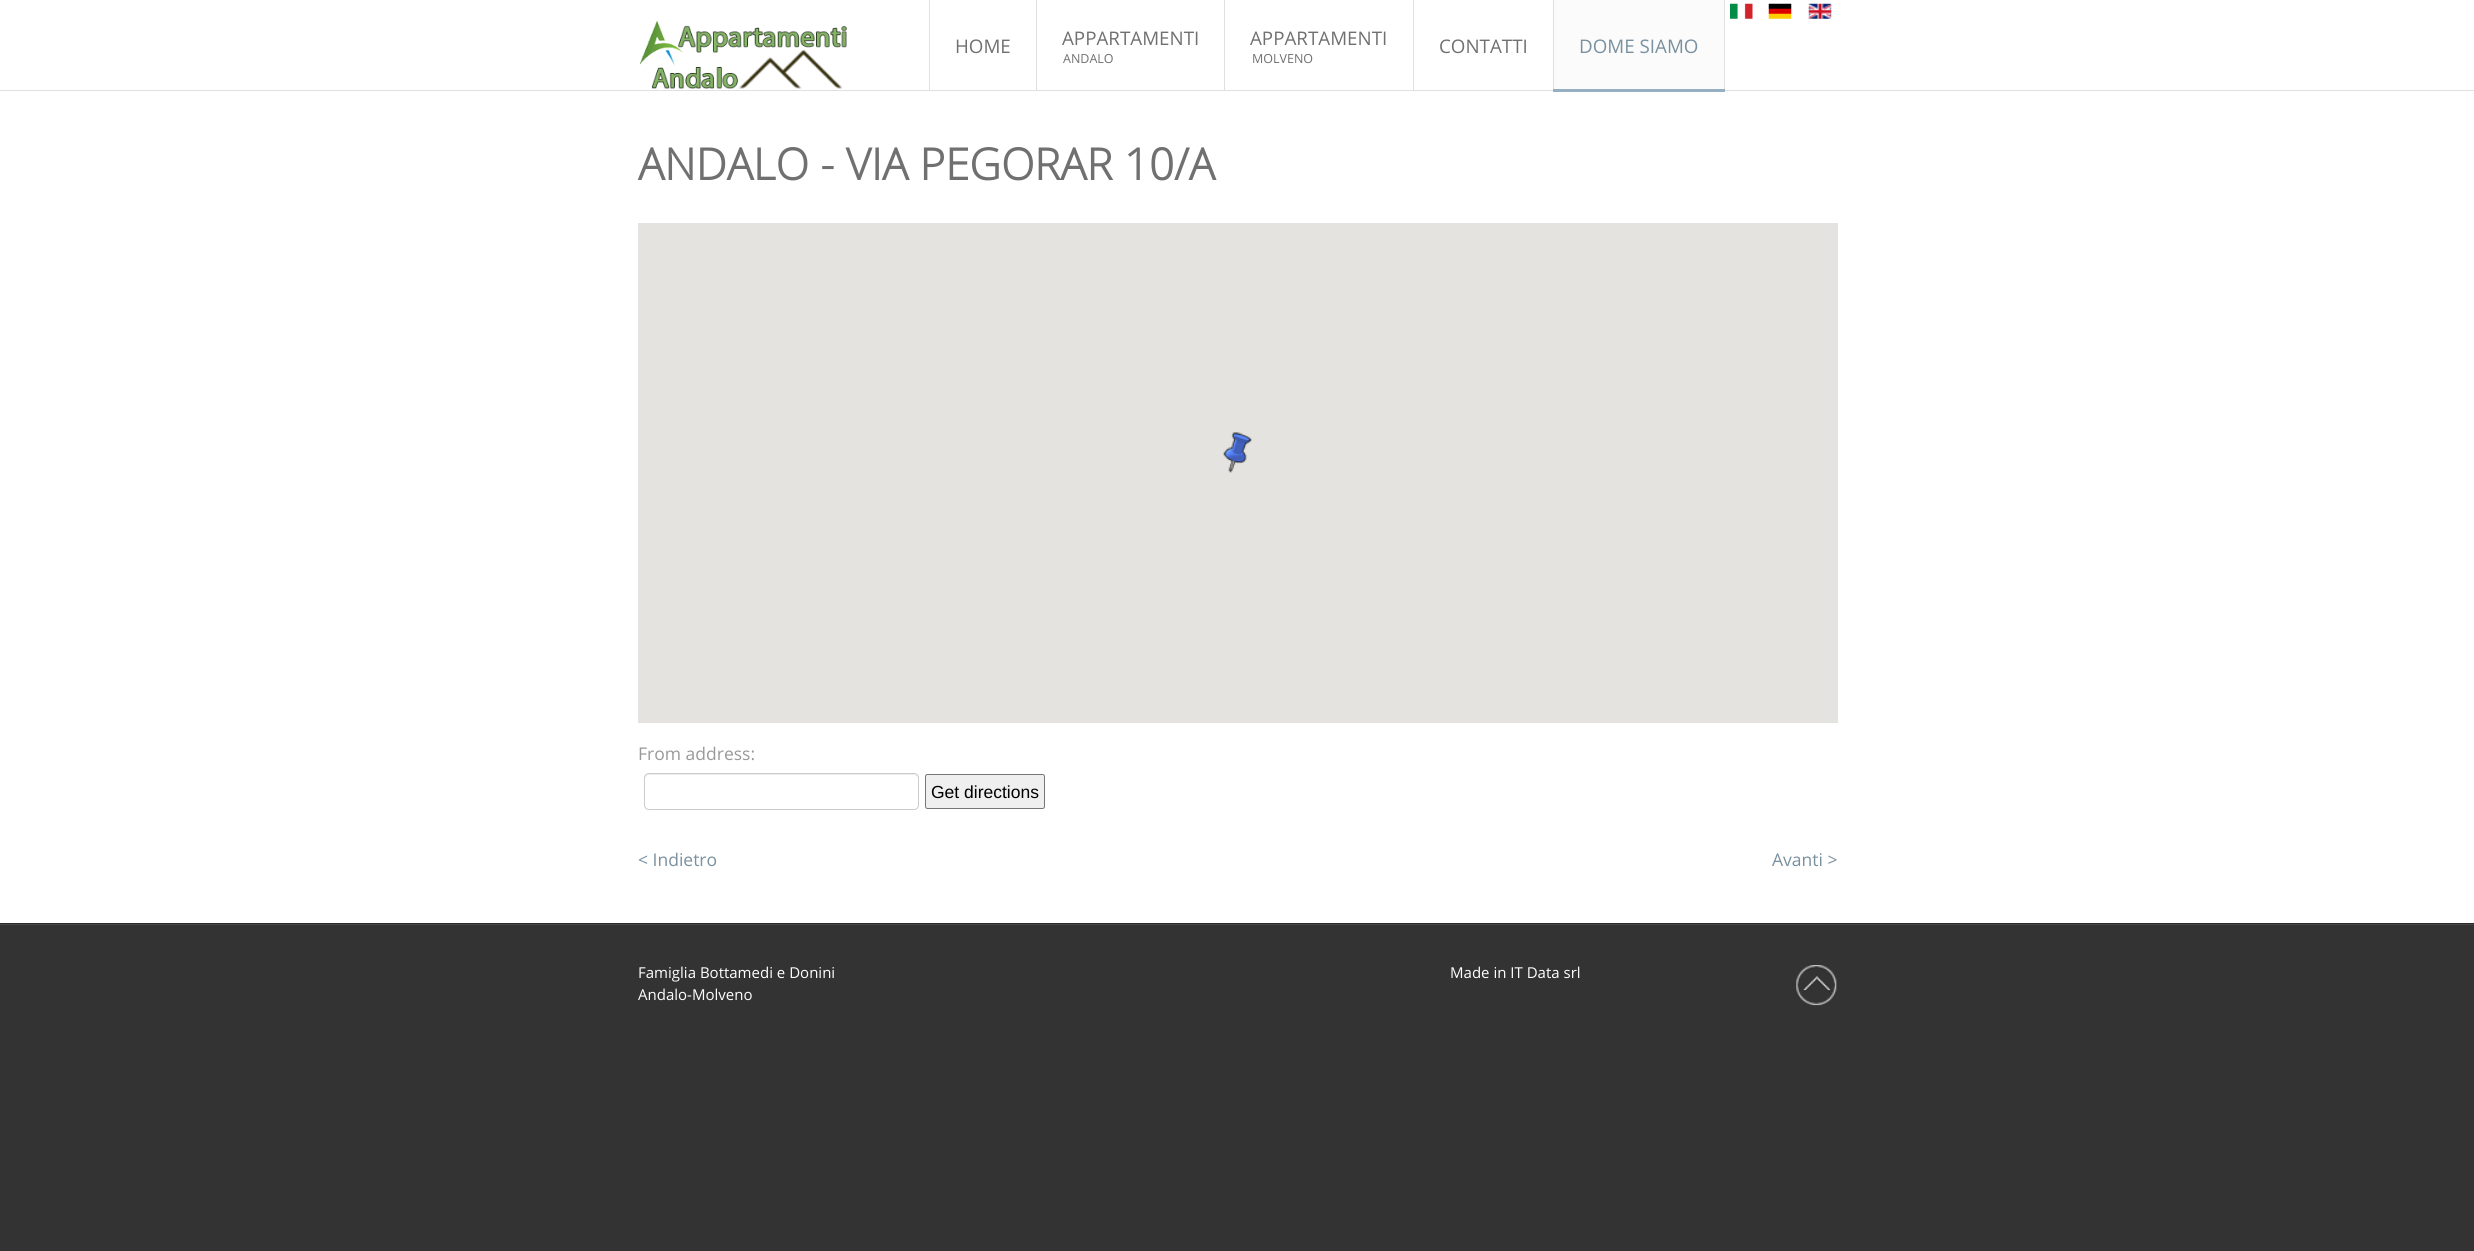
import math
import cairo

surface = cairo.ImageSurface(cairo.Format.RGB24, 2474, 1251)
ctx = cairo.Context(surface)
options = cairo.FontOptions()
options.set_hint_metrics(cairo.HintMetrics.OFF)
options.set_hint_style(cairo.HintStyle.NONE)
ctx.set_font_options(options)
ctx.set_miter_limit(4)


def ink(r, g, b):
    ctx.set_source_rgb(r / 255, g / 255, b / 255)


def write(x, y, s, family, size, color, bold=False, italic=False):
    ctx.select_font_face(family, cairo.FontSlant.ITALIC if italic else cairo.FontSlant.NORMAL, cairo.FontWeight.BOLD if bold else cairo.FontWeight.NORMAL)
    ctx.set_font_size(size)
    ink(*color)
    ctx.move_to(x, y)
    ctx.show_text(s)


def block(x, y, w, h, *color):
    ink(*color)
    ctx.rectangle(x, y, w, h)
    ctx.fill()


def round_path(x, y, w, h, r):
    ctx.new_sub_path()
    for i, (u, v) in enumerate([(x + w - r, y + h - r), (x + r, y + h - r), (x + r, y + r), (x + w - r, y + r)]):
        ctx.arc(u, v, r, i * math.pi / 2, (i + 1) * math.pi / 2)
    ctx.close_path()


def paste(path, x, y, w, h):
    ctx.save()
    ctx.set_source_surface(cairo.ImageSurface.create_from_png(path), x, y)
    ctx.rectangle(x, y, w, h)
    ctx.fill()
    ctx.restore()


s1 = dict(family="Open Sans", size=18.75, color=(112, 112, 112))
s2 = dict(family="Open Sans", size=12.5, color=(112, 112, 112))
s3 = dict(family="Open Sans", size=18.75, color=(121, 144, 159))
s4 = dict(family="Open Sans", size=43.75, color=(112, 112, 112), bold=True)
s5 = dict(family="Open Sans", size=17.5, color=(153, 153, 153))
s6 = dict(family="Liberation Sans", size=17.5, color=(0, 0, 0))
s7 = dict(family="Open Sans", size=17.5, color=(121, 144, 159))
s8 = dict(family="Open Sans", size=15, color=(255, 255, 255))

ink(51, 51, 51)
ctx.paint()
block(0, 0, 2474, 90, 255, 255, 255)
block(0, 90, 2474, 1, 224, 224, 224)
paste("pic1.png", 639, 21, 209, 68)
paste("pic2.png", 1730, 3, 23, 16)
paste("pic3.png", 1768, 3, 24, 16)
paste("pic4.png", 1808, 3, 24, 16)
block(1036, 0, 1, 91, 224, 224, 224)
block(929, 0, 1, 91, 224, 224, 224)
write(955, 53, "HOME", **s1)
block(1224, 0, 1, 91, 224, 224, 224)
write(1062, 45, "APPARTAMENTI", **s1)
write(1063, 63, "ANDALO", **s2)
block(1413, 0, 1, 91, 224, 224, 224)
write(1250, 45, "APPARTAMENTI", **s1)
write(1252, 63, "MOLVENO", **s2)
block(1553, 0, 1, 91, 224, 224, 224)
write(1439, 53, "CONTATTI", **s1)
block(1554, 0, 170, 89, 251, 251, 251)
block(1724, 0, 1, 91, 224, 224, 224)
write(1579, 53, "DOME SIAMO", **s3)
block(0, 91, 2474, 832, 255, 255, 255)
block(1553, 89, 172, 3, 150, 176, 194)
write(638, 180, "ANDALO - VIA PEGORAR 10/A", **s4)
block(638, 223, 1200, 500, 229, 227, 223)
paste("pic5.png", 1223, 432, 29, 41)
write(638, 760, "From address:", **s5)
ink(236, 236, 236)
ctx.new_path()
ctx.move_to(649, 775)
ctx.line_to(914, 775)
ctx.curve_to(916, 775, 918, 777, 918, 779)
ctx.curve_to(918, 776, 917, 774, 914, 774)
ctx.line_to(649, 774)
ctx.curve_to(646, 774, 645, 776, 645, 779)
ctx.curve_to(645, 777, 647, 775, 649, 775)
ctx.close_path()
ctx.fill()
round_path(644.5, 773.5, 274, 36, 4.5)
ink(204, 204, 204)
ctx.set_line_width(1)
ctx.stroke()
ink(239, 239, 239)
round_path(925.5, 774.5, 119, 34, 2)
ctx.fill_preserve()
ink(118, 118, 118)
ctx.stroke()
write(931, 798, "Get directions", **s6)
write(638, 866, "< Indietro", **s7)
write(1772, 866, "Avanti >", **s7)
block(0, 924, 2474, 1, 71, 71, 71)
block(0, 923, 2474, 1, 43, 43, 43)
write(638, 978, "Famiglia Bottamedi e Donini", **s8)
write(1450, 978, "Made in IT Data srl", **s8)
write(638, 1000, "Andalo-Molveno", **s8)
paste("pic6.png", 1796, 965, 41, 41)
surface.write_to_png("screenshot.png")
